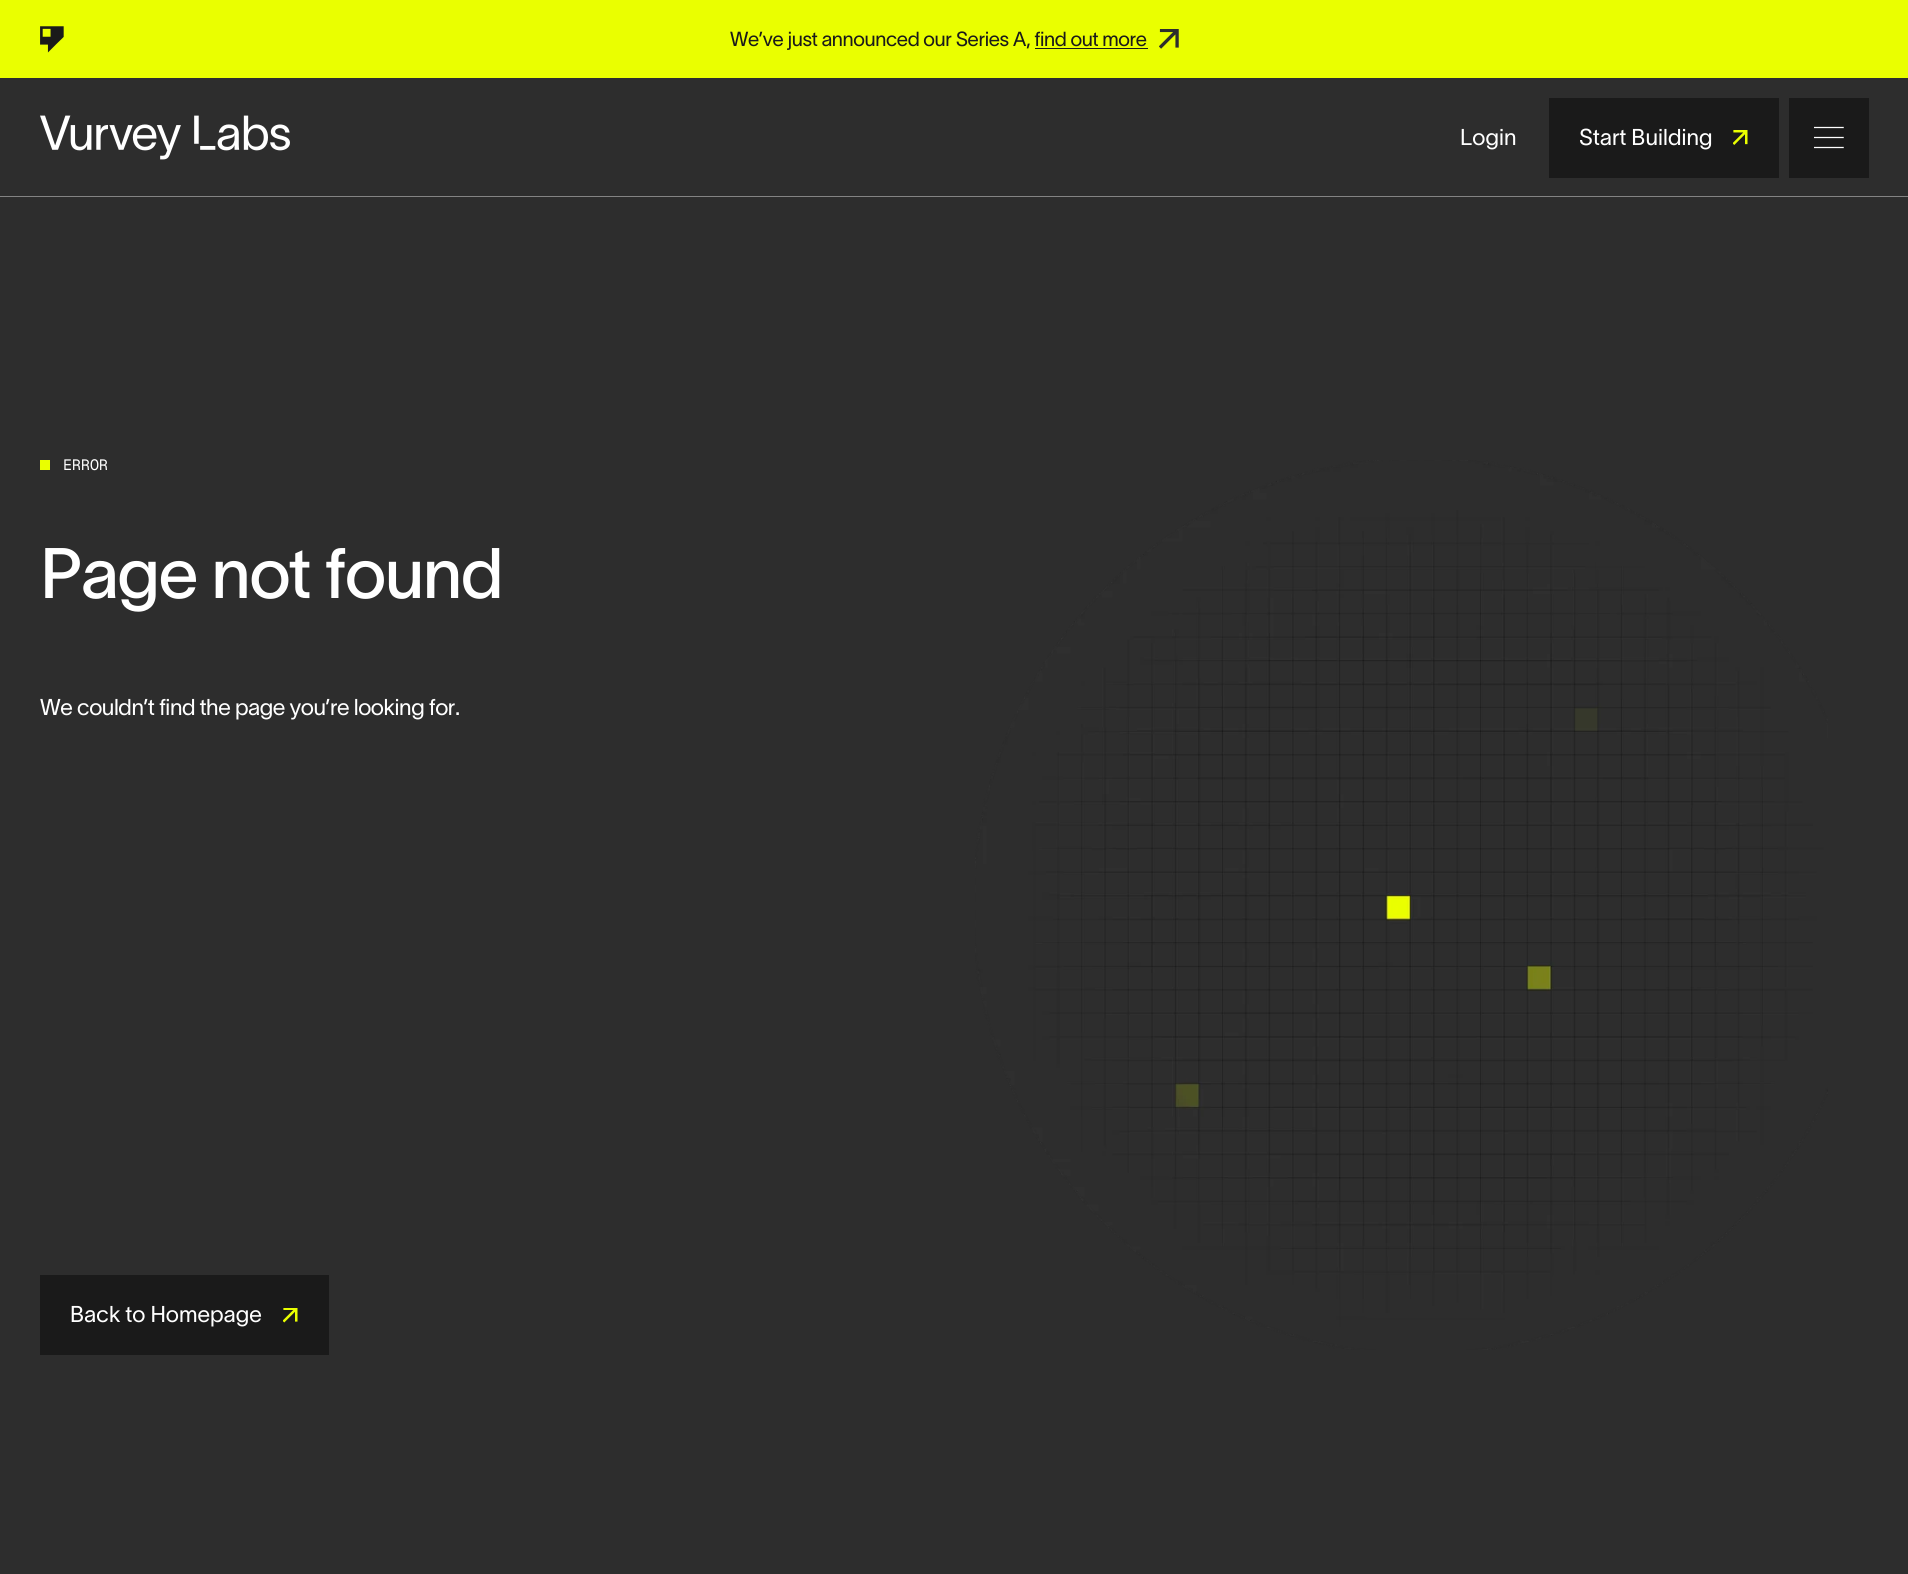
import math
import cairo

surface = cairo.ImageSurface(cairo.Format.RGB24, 1908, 1574)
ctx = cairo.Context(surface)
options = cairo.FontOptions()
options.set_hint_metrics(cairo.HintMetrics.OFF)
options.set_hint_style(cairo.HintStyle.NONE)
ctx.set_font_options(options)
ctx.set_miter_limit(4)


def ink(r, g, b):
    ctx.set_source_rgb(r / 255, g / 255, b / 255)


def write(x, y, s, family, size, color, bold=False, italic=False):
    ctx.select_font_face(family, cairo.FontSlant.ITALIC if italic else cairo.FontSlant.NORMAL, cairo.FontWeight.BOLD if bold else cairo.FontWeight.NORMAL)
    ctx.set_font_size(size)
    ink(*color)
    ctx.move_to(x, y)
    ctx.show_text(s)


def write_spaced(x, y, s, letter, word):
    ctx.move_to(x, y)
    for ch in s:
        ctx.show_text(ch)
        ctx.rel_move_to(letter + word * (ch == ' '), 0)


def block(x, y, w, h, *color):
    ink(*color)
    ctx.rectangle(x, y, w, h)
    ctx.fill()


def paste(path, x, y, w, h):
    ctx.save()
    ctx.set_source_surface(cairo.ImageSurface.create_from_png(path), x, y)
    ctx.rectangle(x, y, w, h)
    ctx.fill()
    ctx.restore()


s1 = dict(family="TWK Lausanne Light", size=22.5, color=(255, 255, 255))
s2 = dict(family="Geist Mono", size=15, color=(255, 255, 255))

ink(45, 45, 45)
ctx.paint()
block(0, 0, 1908, 78, 234, 255, 0)
paste("pic1.png", 40, 26, 24, 27)
ctx.select_font_face("TWK Lausanne Light")
ctx.set_font_size(20)
ink(26, 26, 26)
write_spaced(730, 46, "We’ve just announced our Series A, find out more", -0.4, 0)
block(1035, 48, 113, 1, 26, 26, 26)
paste("pic2.png", 1159, 29, 20, 20)
paste("pic3.png", 40, 115, 250, 45)
write(1460, 145, "Login", **s1)
block(1549, 98, 230, 80, 26, 26, 26)
write(1579, 145, "Start Building", **s1)
paste("pic4.png", 1733, 130, 15, 15)
block(1789, 98, 80, 80, 26, 26, 26)
paste("pic5.png", 1814, 126, 30, 23)
block(0, 196, 1908, 1, 131, 131, 131)
block(40, 460, 10, 10, 234, 255, 0)
write(63, 470, "ERROR", **s2)
ctx.select_font_face("TWK Lausanne")
ctx.set_font_size(70)
write_spaced(40, 598, "Page not found", -1.4, 0)
ctx.select_font_face("TWK Lausanne Light")
ctx.set_font_size(22.5)
write_spaced(40, 715, "We couldn’t find the page you’re looking for.", -0.45, 0)
block(40, 1275, 289, 80, 26, 26, 26)
write(70, 1322, "Back to Homepage", **s1)
paste("pic6.png", 283, 1308, 15, 15)
paste("pic7.png", 975, 460, 853, 890)
surface.write_to_png("screenshot.png")
